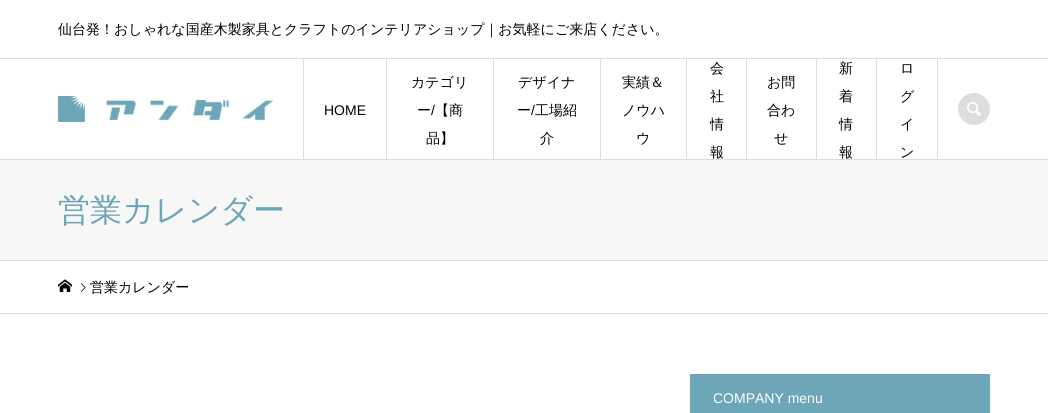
import math
import cairo

surface = cairo.ImageSurface(cairo.Format.RGB24, 1048, 413)
ctx = cairo.Context(surface)
options = cairo.FontOptions()
options.set_hint_metrics(cairo.HintMetrics.OFF)
options.set_hint_style(cairo.HintStyle.NONE)
ctx.set_font_options(options)
ctx.set_miter_limit(4)


def ink(r, g, b):
    ctx.set_source_rgb(r / 255, g / 255, b / 255)


def write(x, y, s, family, size, color, bold=False, italic=False):
    ctx.select_font_face(family, cairo.FontSlant.ITALIC if italic else cairo.FontSlant.NORMAL, cairo.FontWeight.BOLD if bold else cairo.FontWeight.NORMAL)
    ctx.set_font_size(size)
    ink(*color)
    ctx.move_to(x, y)
    ctx.show_text(s)


def block(x, y, w, h, *color):
    ink(*color)
    ctx.rectangle(x, y, w, h)
    ctx.fill()


def paste(path, x, y, w, h):
    ctx.save()
    ctx.set_source_surface(cairo.ImageSurface.create_from_png(path), x, y)
    ctx.rectangle(x, y, w, h)
    ctx.fill()
    ctx.restore()


s1 = dict(family="WenQuanYi Zen Hei Medium", size=14, color=(0, 0, 0))
s2 = dict(family="Liberation Sans", size=14, color=(0, 0, 0))
s3 = dict(family="WenQuanYi Zen Hei Medium", size=32, color=(108, 166, 184))
s4 = dict(family="Liberation Sans", size=14, color=(255, 255, 255))

ink(255, 255, 255)
ctx.paint()
block(0, 58, 1048, 1, 221, 221, 221)
write(58, 34, "仙台発！おしゃれな国産木製家具とクラフトのインテリアショップ｜お気軽にご来店ください。", **s1)
block(0, 159, 1048, 1, 221, 221, 221)
paste("pic1.png", 58, 96, 215, 26)
block(303, 59, 1, 100, 221, 221, 221)
block(386, 59, 1, 101, 221, 221, 221)
write(324, 115, "HOME", **s2)
block(493, 59, 1, 101, 221, 221, 221)
write(411, 87, "カテゴリ", **s1)
write(417, 115, "ー", **s1)
write(431, 115, "/", **s2)
write(435, 115, "【商", **s1)
write(426, 143, "品】", **s1)
block(600, 59, 1, 101, 221, 221, 221)
write(518, 87, "デザイナ", **s1)
write(517, 115, "ー", **s1)
write(531, 115, "/", **s2)
write(535, 115, "工場紹", **s1)
write(540, 143, "介", **s1)
block(686, 59, 1, 101, 221, 221, 221)
write(622, 87, "実績＆", **s1)
write(622, 115, "ノウハ", **s1)
write(636, 143, "ウ", **s1)
block(746, 59, 1, 101, 221, 221, 221)
write(710, 73, "会", **s1)
write(710, 101, "社", **s1)
write(710, 129, "情", **s1)
write(710, 157, "報", **s1)
block(816, 59, 1, 101, 221, 221, 221)
write(767, 87, "お問", **s1)
write(767, 115, "合わ", **s1)
write(774, 143, "せ", **s1)
block(876, 59, 1, 101, 221, 221, 221)
write(839, 73, "新", **s1)
write(839, 101, "着", **s1)
write(839, 129, "情", **s1)
write(839, 157, "報", **s1)
block(937, 59, 1, 101, 221, 221, 221)
write(900, 73, "ロ", **s1)
write(900, 101, "グ", **s1)
write(900, 129, "イ", **s1)
write(900, 157, "ン", **s1)
ink(221, 221, 221)
ctx.new_path()
ctx.arc(974, 109, 16, 0, 2 * math.pi)
ctx.fill()
paste("pic2.png", 967, 101, 14, 15)
block(0, 160, 1048, 100, 247, 247, 247)
block(0, 260, 1048, 1, 221, 221, 221)
write(58, 221, "営業カレンダー", **s3)
block(0, 313, 1048, 1, 221, 221, 221)
paste("pic3.png", 58, 279, 14, 13)
paste("pic4.png", 81, 283, 5, 9)
write(90, 292, "営業カレンダー", **s1)
block(690, 374, 300, 39, 108, 166, 184)
write(713, 403, "COMPANY menu", **s4)
surface.write_to_png("screenshot.png")
